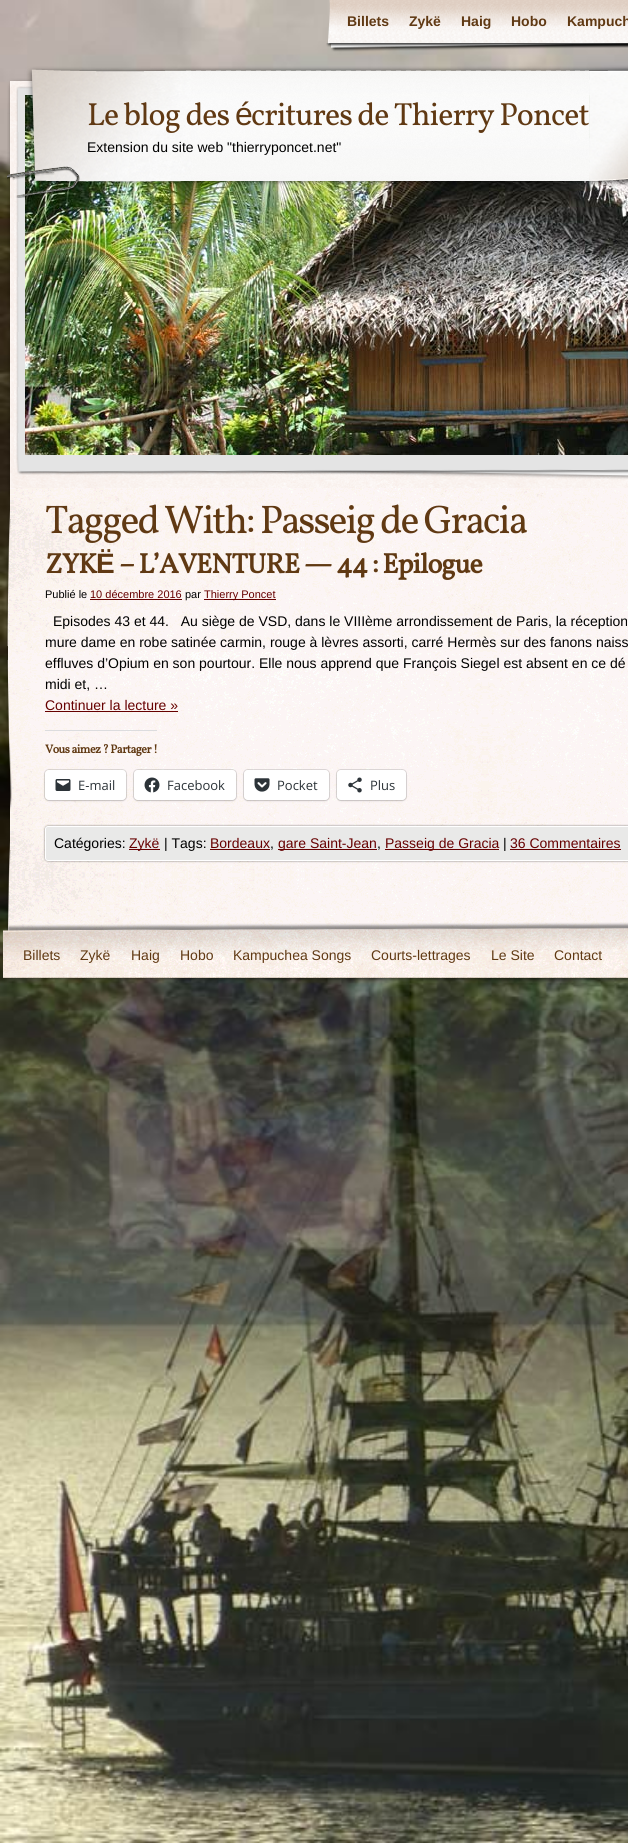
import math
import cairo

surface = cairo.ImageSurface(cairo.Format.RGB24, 628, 1843)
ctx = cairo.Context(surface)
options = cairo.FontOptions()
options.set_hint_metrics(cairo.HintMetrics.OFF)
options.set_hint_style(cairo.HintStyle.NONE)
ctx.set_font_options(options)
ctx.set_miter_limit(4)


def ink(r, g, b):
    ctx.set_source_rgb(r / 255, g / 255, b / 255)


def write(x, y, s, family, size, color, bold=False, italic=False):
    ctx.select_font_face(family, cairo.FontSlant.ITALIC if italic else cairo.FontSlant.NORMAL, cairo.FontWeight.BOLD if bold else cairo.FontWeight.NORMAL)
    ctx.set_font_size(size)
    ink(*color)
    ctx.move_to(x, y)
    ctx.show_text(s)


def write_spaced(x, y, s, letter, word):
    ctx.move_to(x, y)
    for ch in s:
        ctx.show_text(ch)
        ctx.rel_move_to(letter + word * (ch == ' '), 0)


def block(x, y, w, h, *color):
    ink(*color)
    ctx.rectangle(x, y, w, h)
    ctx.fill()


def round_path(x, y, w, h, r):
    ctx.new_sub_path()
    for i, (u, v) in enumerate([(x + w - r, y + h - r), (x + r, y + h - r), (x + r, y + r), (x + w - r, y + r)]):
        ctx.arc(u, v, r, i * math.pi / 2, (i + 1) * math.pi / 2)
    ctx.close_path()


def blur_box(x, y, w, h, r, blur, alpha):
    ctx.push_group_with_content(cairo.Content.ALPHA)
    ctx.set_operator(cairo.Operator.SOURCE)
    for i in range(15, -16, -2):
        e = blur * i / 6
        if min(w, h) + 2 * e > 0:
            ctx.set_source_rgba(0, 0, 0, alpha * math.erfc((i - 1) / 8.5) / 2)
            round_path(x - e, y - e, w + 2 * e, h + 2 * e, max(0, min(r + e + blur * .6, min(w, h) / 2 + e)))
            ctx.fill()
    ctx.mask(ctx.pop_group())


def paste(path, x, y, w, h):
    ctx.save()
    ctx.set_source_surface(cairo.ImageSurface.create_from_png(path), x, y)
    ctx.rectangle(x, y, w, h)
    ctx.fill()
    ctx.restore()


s1 = dict(family="Liberation Sans", size=14, color=(96, 57, 19), bold=True)
s2 = dict(family="Liberation Sans", size=14, color=(0, 0, 0))
s3 = dict(family="Liberation Sans", size=11, color=(0, 0, 0))
s4 = dict(family="Liberation Sans", size=11, color=(102, 0, 0))
s5 = dict(family="Liberation Sans", size=14, color=(102, 0, 0))
s6 = dict(family="Open Sans", size=13, color=(44, 51, 56))
s7 = dict(family="Liberation Sans", size=14, color=(96, 57, 19))

ink(255, 255, 255)
ctx.paint()
paste("pic1.png", 0, 0, 628, 1843)
paste("pic2.png", 328, 0, 9, 44)
paste("pic3.png", 337, 0, 291, 48)
write(347, 26, "Billets", **s1)
write(409, 26, "Zykë", **s1)
write(461, 26, "Haig", **s1)
write(511, 26, "Hobo", **s1)
write(567, 26, "Kampuch", **s1)
paste("pic4.png", 326, 43, 302, 9)
paste("pic5.png", 7, 112, 18, 376)
paste("pic6.png", 7, 78, 583, 54)
paste("pic7.png", 13, 433, 615, 55)
paste("pic8.png", 25, 95, 603, 360)
paste("pic9.png", 589, 65, 39, 121)
paste("pic10.png", 7, 66, 582, 132)
ctx.select_font_face("Vollkorn")
ctx.set_font_size(32)
write_spaced(87, 125, "Le blog des", -1, 0)
ctx.select_font_face("Liberation Sans")
write_spaced(235, 125, "é", -1, 0)
ctx.select_font_face("Vollkorn")
write_spaced(251, 125, "critures de Thierry Poncet", -1, 0)
write(87, 152, "Extension du site web \"thierryponcet.net\"", **s2)
paste("pic11.png", 6, 488, 622, 443)
ctx.select_font_face("Vollkorn")
ctx.set_font_size(40)
ink(96, 57, 19)
write_spaced(45, 533, "Tagged With: Passeig de Gracia", -2, 0)
ctx.select_font_face("Vollkorn", cairo.FontSlant.NORMAL, cairo.FontWeight.BOLD)
ctx.set_font_size(28)
write_spaced(45, 573, "ZYK", -1, 0)
ctx.select_font_face("Liberation Sans", cairo.FontSlant.NORMAL, cairo.FontWeight.BOLD)
write_spaced(96, 573, "Ë", -1, 0)
ctx.select_font_face("Vollkorn", cairo.FontSlant.NORMAL, cairo.FontWeight.BOLD)
write_spaced(119, 573, "– L’AVENTURE — 44 : Epilogue", -1, 0)
write(45, 598, "Publié le", **s3)
write(90, 598, "10 décembre 2016", **s4)
block(90, 599, 92, 1, 102, 0, 0)
write(185, 598, "par", **s3)
block(204, 599, 72, 1, 102, 0, 0)
write(204, 598, "Thierry Poncet", **s4)
write(53, 626, "Episodes 43 et 44.   Au siège de VSD, dans le VIIIème arrondissement de Paris, la réception", **s2)
write(45, 647, "mure dame en robe satinée carmin, rouge à lèvres assorti, carré Hermès sur des fanons naiss", **s2)
write(45, 668, "effluves d’Opium en son pourtour. Elle nous apprend que François Siegel est absent en ce dé", **s2)
write(45, 689, "midi et, …", **s2)
write(45, 710, "Continuer la lecture »", **s5)
block(45, 711, 133, 1, 102, 0, 0)
block(45, 730, 112, 1, 220, 220, 222)
ctx.select_font_face("Vollkorn", cairo.FontSlant.NORMAL, cairo.FontWeight.BOLD)
ctx.set_font_size(12)
ink(96, 57, 19)
write_spaced(45, 753, "Vous aimez ? Partager !", -0.5, 0)
round_path(44.5, 769.5, 82, 31, 4.5)
ctx.set_source_rgba(0, 0, 0, 0.12)
ctx.set_line_width(1)
ctx.stroke()
ink(0, 0, 0)
blur_box(45, 771, 81, 30, 4, 1, 0.12)
ink(255, 255, 255)
round_path(45, 770, 81, 30, 4)
ctx.fill()
paste("pic12.png", 55, 779, 16, 12)
write(78, 790, "E-mail", **s6)
round_path(133.5, 769.5, 103, 31, 4.5)
ctx.set_source_rgba(0, 0, 0, 0.12)
ctx.stroke()
ink(0, 0, 0)
blur_box(134, 771, 102, 30, 4, 1, 0.12)
ink(255, 255, 255)
round_path(134, 770, 102, 30, 4)
ctx.fill()
paste("pic13.png", 144, 777, 16, 16)
write(167, 790, "Facebook", **s6)
round_path(243.5, 769.5, 86, 31, 4.5)
ctx.set_source_rgba(0, 0, 0, 0.12)
ctx.stroke()
ink(0, 0, 0)
blur_box(244, 771, 85, 30, 4, 1, 0.12)
ink(255, 255, 255)
round_path(244, 770, 85, 30, 4)
ctx.fill()
paste("pic14.png", 254, 778, 16, 14)
write(277, 790, "Pocket", **s6)
round_path(336.5, 769.5, 70, 31, 4.5)
ctx.set_source_rgba(0, 0, 0, 0.12)
ctx.stroke()
ink(0, 0, 0)
blur_box(337, 771, 69, 30, 4, 1, 0.12)
ink(255, 255, 255)
round_path(337, 770, 69, 30, 4)
ctx.fill()
paste("pic15.png", 348, 777, 14, 16)
write(370, 790, "Plus", **s6)
ink(0, 0, 0)
blur_box(45, 826, 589, 35, 3, 1, 0.5)
ink(233, 233, 232)
round_path(45.5, 826.5, 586, 34, 2.5)
ctx.fill_preserve()
ink(255, 255, 255)
ctx.stroke()
write(54, 848, "Catégories:", **s2)
block(129, 849, 31, 1, 102, 0, 0)
write(129, 848, "Zykë", **s5)
write(164, 848, "| Tags:", **s2)
write(210, 848, "Bordeaux", **s5)
write(270, 848, ",", **s2)
block(210, 849, 60, 1, 102, 0, 0)
block(278, 849, 99, 1, 102, 0, 0)
write(278, 848, "gare Saint-Jean", **s5)
write(377, 848, ",", **s2)
block(385, 849, 114, 1, 102, 0, 0)
write(385, 848, "Passeig de Gracia", **s5)
write(503, 848, "|", **s2)
write(510, 848, "36 Commentaires", **s5)
block(510, 849, 111, 1, 102, 0, 0)
paste("pic16.png", 3, 922, 625, 60)
write(23, 960, "Billets", **s7)
write(80, 960, "Zykë", **s7)
write(131, 960, "Haig", **s7)
write(180, 960, "Hobo", **s7)
write(233, 960, "Kampuchea Songs", **s7)
write(371, 960, "Courts-lettrages", **s7)
write(491, 960, "Le Site", **s7)
write(554, 960, "Contact", **s7)
surface.write_to_png("screenshot.png")
